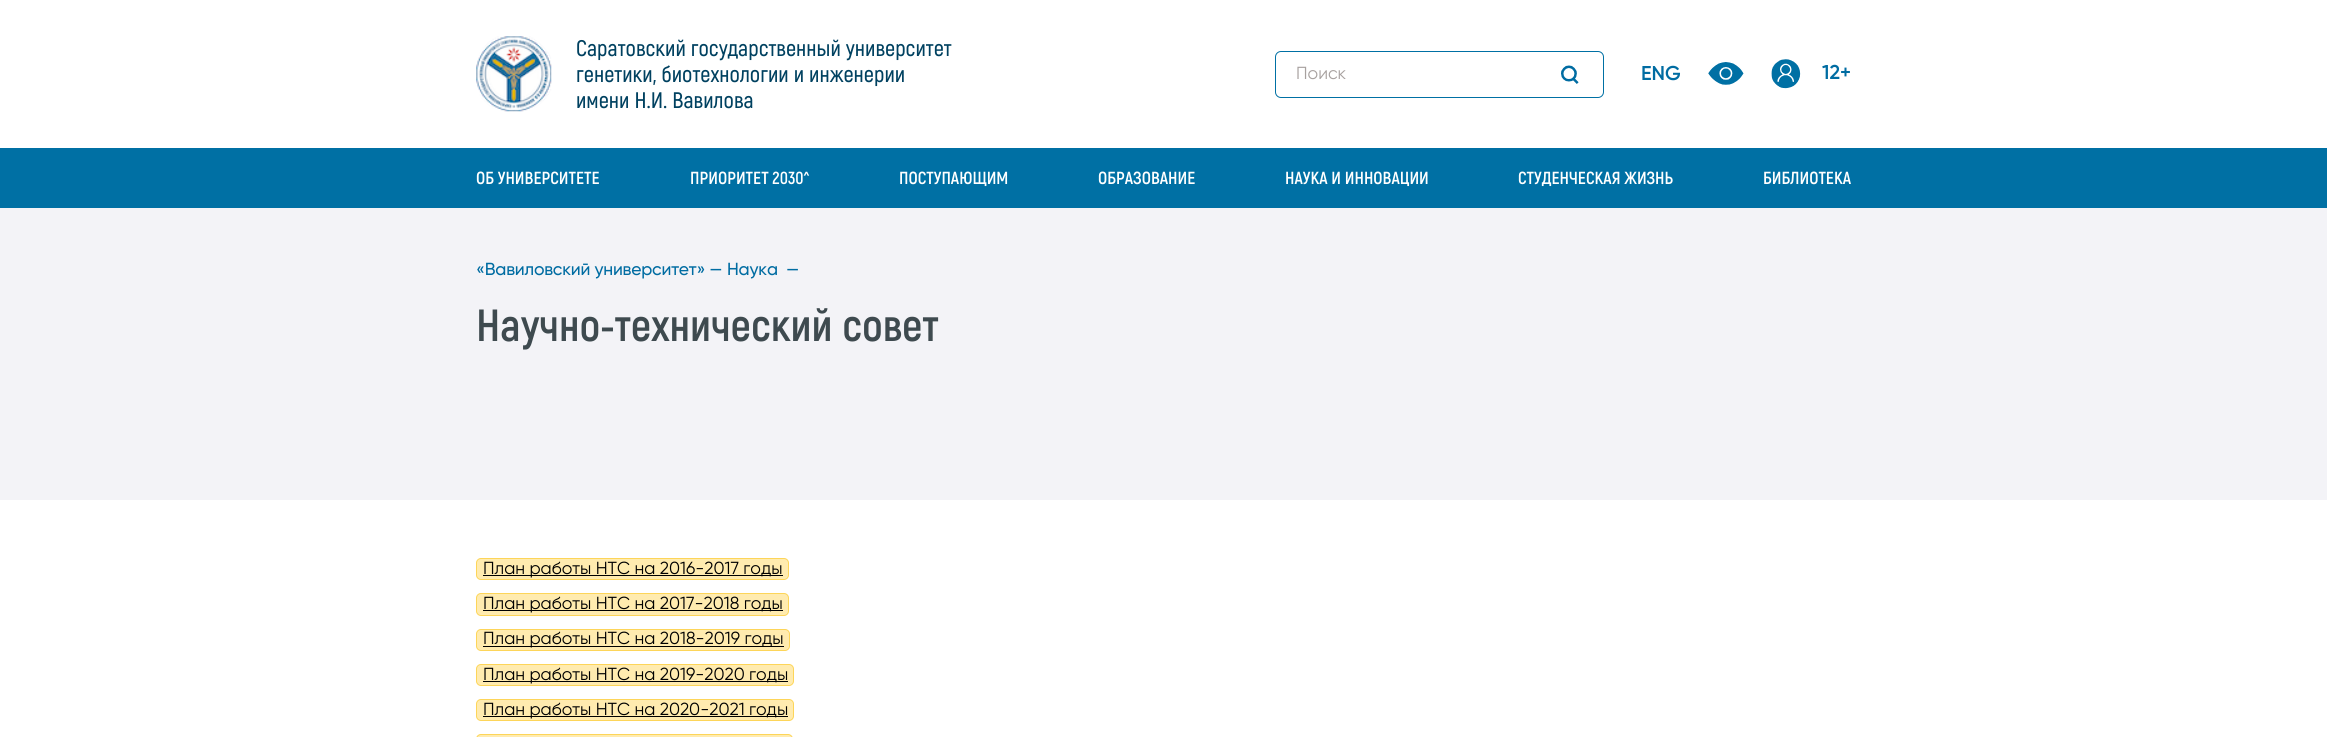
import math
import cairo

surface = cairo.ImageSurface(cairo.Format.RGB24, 2327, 737)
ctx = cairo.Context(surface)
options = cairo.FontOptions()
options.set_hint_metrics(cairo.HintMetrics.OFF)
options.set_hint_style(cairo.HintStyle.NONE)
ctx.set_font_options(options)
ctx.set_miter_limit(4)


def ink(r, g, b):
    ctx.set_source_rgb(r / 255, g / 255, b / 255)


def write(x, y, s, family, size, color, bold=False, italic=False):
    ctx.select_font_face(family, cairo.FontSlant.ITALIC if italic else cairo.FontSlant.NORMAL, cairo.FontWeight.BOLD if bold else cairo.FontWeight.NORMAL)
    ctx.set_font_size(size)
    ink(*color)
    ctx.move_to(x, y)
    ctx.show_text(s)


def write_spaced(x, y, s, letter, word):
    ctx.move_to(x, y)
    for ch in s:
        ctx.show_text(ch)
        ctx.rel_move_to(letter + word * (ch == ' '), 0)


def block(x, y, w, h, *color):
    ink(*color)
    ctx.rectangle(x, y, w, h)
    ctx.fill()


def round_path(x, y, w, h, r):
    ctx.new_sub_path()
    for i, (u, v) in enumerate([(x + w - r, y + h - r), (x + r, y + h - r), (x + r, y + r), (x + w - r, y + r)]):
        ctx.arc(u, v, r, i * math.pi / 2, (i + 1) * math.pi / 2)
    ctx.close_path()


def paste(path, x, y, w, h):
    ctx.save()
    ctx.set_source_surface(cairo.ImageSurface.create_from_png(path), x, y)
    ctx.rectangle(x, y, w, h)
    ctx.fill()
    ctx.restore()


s1 = dict(family="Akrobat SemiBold", size=22.5, color=(0, 65, 96))
s2 = dict(family="Gilroy SemiBold", size=20, color=(0, 108, 162))
s3 = dict(family="Gilroy", size=17.5, color=(167, 161, 159))
s4 = dict(family="Akrobat", size=17.5, color=(255, 255, 255), bold=True)
s5 = dict(family="Akrobat", size=45, color=(62, 74, 79), bold=True)
s6 = dict(family="Gilroy", size=17.5, color=(0, 0, 0))

ink(255, 255, 255)
ctx.paint()
paste("pic1.png", 476, 36, 76, 76)
write(576, 56, "Саратовский государственный университет", **s1)
write(576, 82, "генетики, биотехнологии и инженерии", **s1)
write(576, 108, "имени Н.И. Вавилова", **s1)
write(1822, 79, "12+", **s2)
round_path(1275.5, 51.5, 328, 46, 5.5)
ink(0, 112, 164)
ctx.set_line_width(1)
ctx.stroke()
write(1296, 79, "Поиск", **s3)
paste("pic2.png", 1561, 65, 18, 19)
write(1641, 80, "ENG", **s2)
paste("pic3.png", 1708, 61, 36, 25)
paste("pic4.png", 1771, 59, 30, 30)
block(0, 148, 2327, 60, 0, 112, 164)
write(476, 184, "ОБ УНИВЕРСИТЕТЕ", **s4)
write(690, 184, "ПРИОРИТЕТ 2030^", **s4)
write(899, 184, "ПОСТУПАЮЩИМ", **s4)
write(1098, 184, "ОБРАЗОВАНИЕ", **s4)
write(1285, 184, "НАУКА И ИННОВАЦИИ", **s4)
write(1518, 184, "СТУДЕНЧЕСКАЯ ЖИЗНЬ", **s4)
write(1763, 184, "БИБЛИОТЕКА", **s4)
block(0, 208, 2327, 292, 243, 243, 247)
ctx.select_font_face("Gilroy Medium")
ink(0, 108, 162)
write_spaced(476, 275, "«Вавиловский университет» —", -0.2, 0)
write_spaced(727, 275, "Наука", -0.2, 0)
write_spaced(786, 275, "—", -0.2, 0)
write(476, 341, "Научно-технический совет", **s5)
ink(255, 235, 175)
round_path(476.5, 558.5, 312, 21, 4.5)
ctx.fill_preserve()
ink(253, 213, 89)
ctx.stroke()
block(483, 575, 300, 1, 0, 0, 0)
write(483, 574, "План работы НТС на 2016-2017 годы", **s6)
ink(255, 235, 175)
round_path(476.5, 593.5, 312, 22, 4.5)
ctx.fill_preserve()
ink(253, 213, 89)
ctx.stroke()
block(483, 610, 300, 1, 0, 0, 0)
write(483, 609, "План работы НТС на 2017-2018 годы", **s6)
ink(255, 235, 175)
round_path(476.5, 629.5, 313, 21, 4.5)
ctx.fill_preserve()
ink(253, 213, 89)
ctx.stroke()
block(483, 646, 301, 1, 0, 0, 0)
write(483, 644, "План работы НТС на 2018-2019 годы", **s6)
ink(255, 235, 175)
round_path(476.5, 664.5, 317, 21, 4.5)
ctx.fill_preserve()
ink(253, 213, 89)
ctx.stroke()
block(483, 681, 305, 1, 0, 0, 0)
write(483, 680, "План работы НТС на 2019-2020 годы", **s6)
ink(255, 235, 175)
round_path(476.5, 699.5, 317, 21, 4.5)
ctx.fill_preserve()
ink(253, 213, 89)
ctx.stroke()
block(483, 716, 305, 1, 0, 0, 0)
write(483, 715, "План работы НТС на 2020-2021 годы", **s6)
ink(255, 235, 175)
round_path(476.5, 734.5, 316, 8, 4.5)
ctx.fill_preserve()
ink(253, 213, 89)
ctx.stroke()
surface.write_to_png("screenshot.png")
